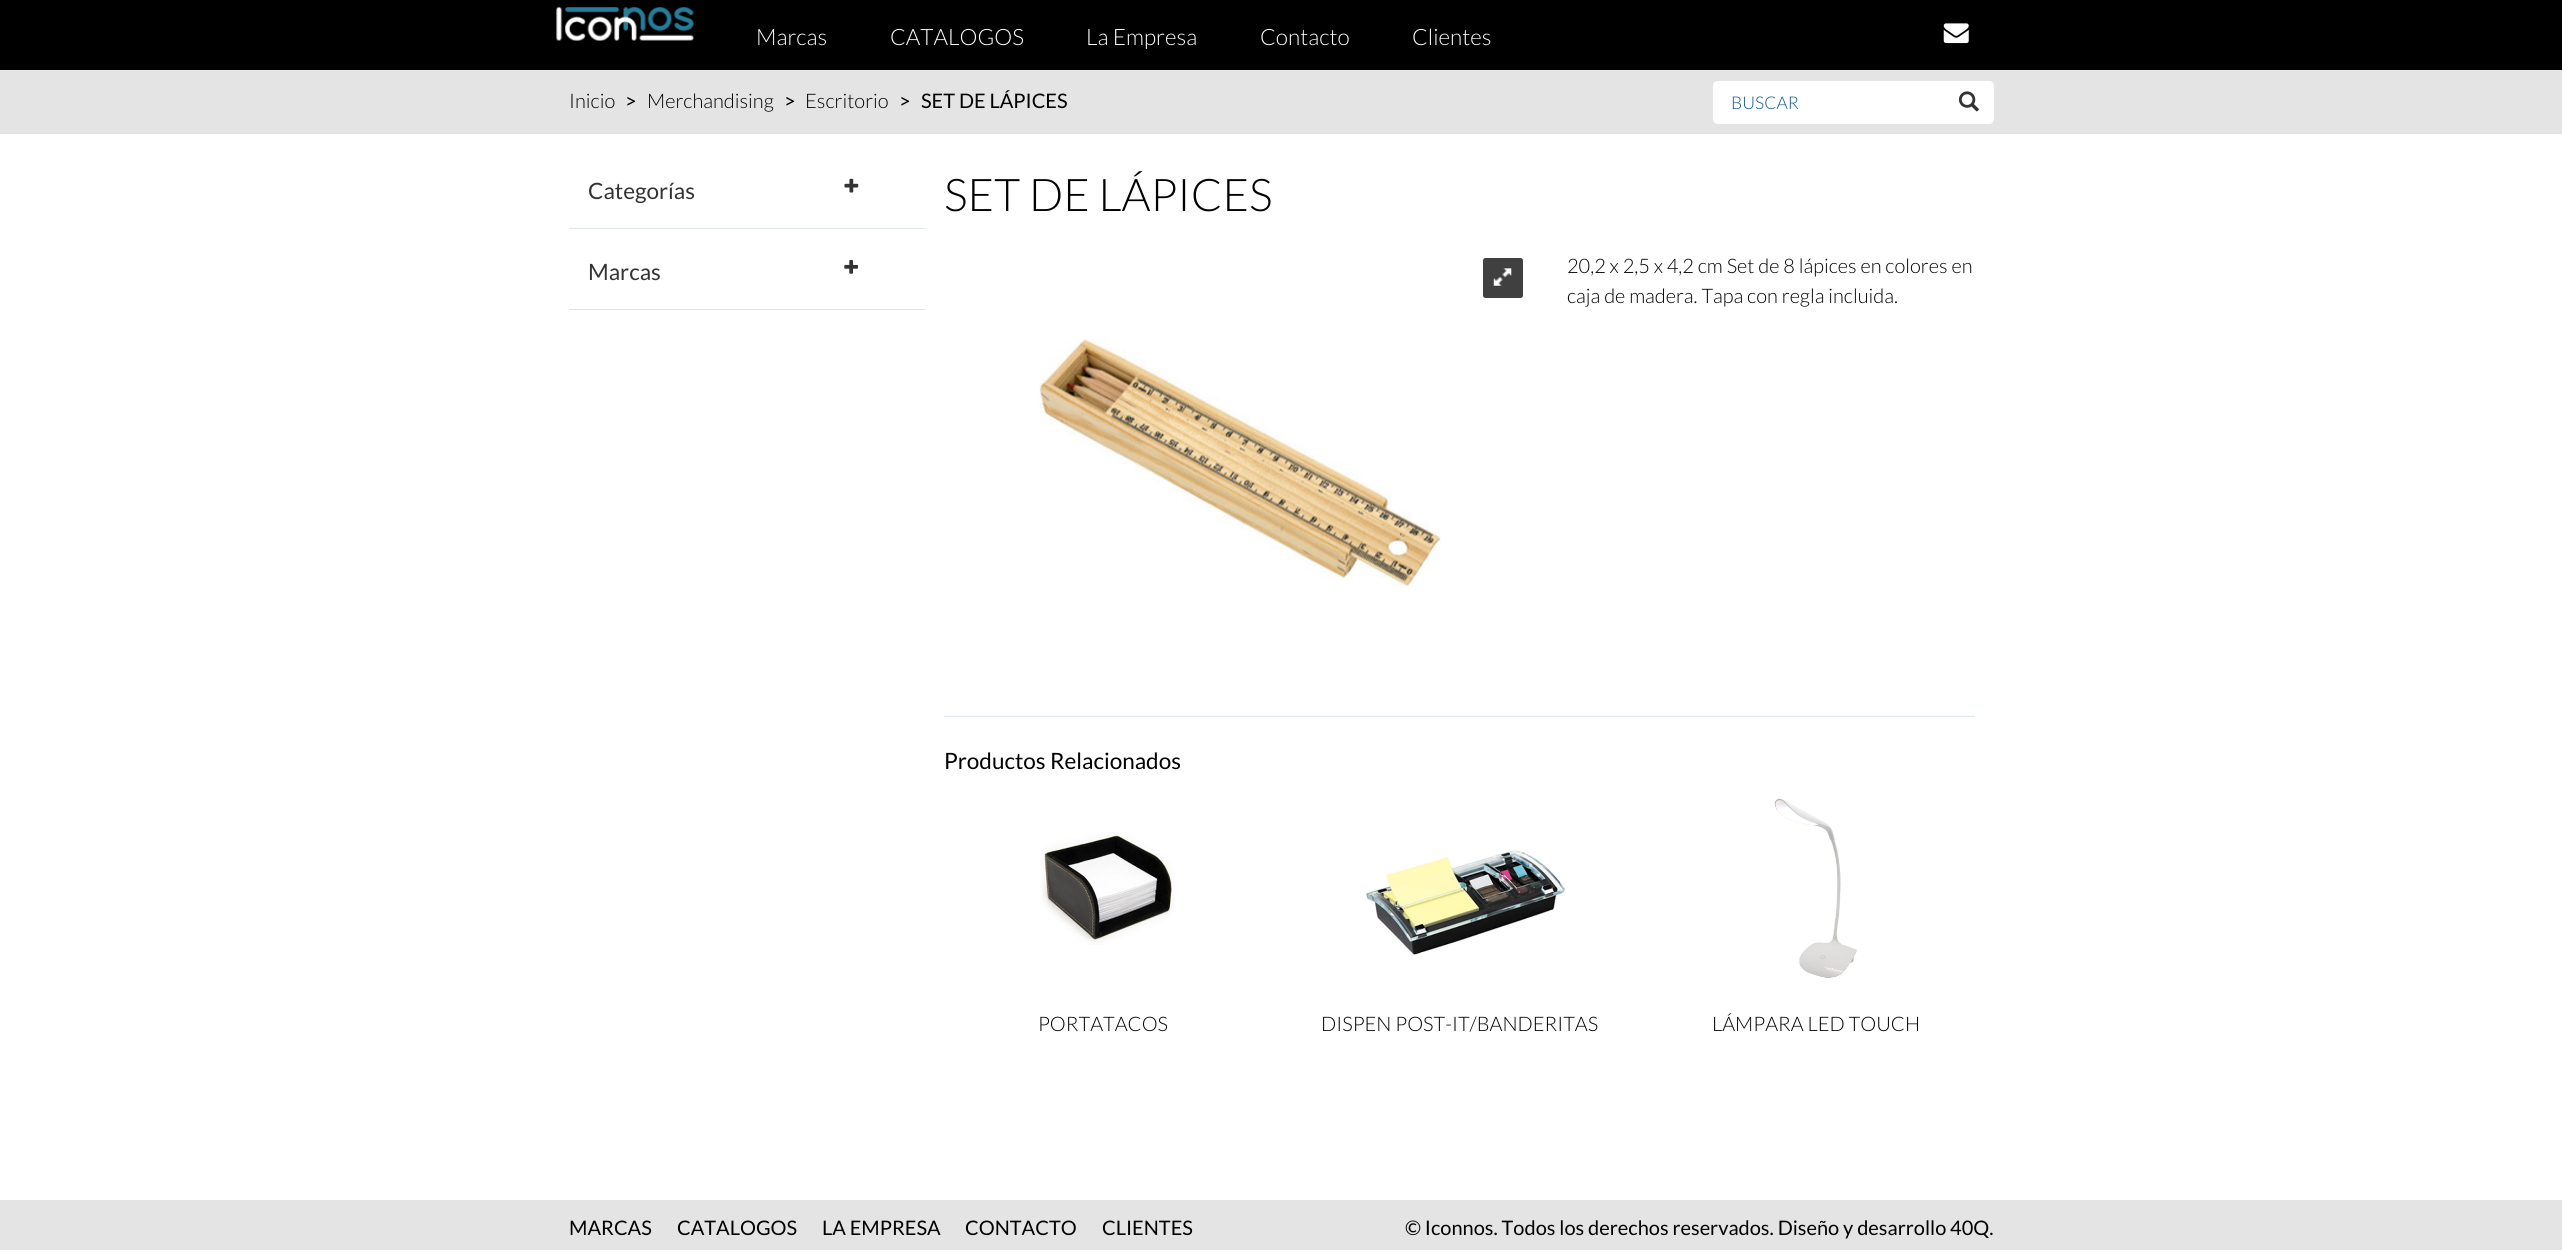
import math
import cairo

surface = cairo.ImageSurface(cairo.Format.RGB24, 2562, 1252)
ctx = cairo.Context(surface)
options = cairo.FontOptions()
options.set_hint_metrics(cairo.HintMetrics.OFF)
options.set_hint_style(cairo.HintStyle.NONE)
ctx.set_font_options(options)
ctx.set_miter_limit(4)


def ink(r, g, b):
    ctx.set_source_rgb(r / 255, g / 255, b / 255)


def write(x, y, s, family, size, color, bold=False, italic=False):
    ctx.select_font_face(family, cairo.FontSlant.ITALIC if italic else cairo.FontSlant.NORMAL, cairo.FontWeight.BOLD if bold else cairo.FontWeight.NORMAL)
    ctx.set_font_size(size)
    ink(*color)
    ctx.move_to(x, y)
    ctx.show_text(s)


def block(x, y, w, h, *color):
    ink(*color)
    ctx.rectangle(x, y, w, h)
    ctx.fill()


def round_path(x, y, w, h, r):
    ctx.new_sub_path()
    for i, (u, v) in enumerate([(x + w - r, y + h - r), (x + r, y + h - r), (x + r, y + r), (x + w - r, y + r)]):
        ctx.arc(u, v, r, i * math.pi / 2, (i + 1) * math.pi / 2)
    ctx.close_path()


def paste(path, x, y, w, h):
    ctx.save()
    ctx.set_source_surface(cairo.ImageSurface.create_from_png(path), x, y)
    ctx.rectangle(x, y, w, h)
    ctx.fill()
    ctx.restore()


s1 = dict(family="Lato Light", size=22.5, color=(255, 255, 255))
s2 = dict(family="Lato Light", size=20, color=(0, 0, 0))
s3 = dict(family="Lato", size=20, color=(0, 0, 0))
s4 = dict(family="Lato Light", size=17.5, color=(18, 86, 144))
s5 = dict(family="Lato", size=22.5, color=(51, 51, 51))
s6 = dict(family="Lato Light", size=45, color=(0, 0, 0))
s7 = dict(family="Lato", size=22.5, color=(0, 0, 0))

ink(255, 255, 255)
ctx.paint()
block(0, 0, 2562, 70, 0, 0, 0)
block(0, 70, 2562, 1, 231, 231, 231)
paste("pic1.png", 556, 7, 138, 34)
write(756, 45, "Marcas", **s1)
write(890, 45, "CATALOGOS", **s1)
write(1086, 45, "La Empresa", **s1)
write(1260, 45, "Contacto", **s1)
write(1412, 45, "Clientes", **s1)
paste("pic2.png", 1943, 23, 26, 21)
block(0, 71, 2562, 63, 228, 228, 228)
write(569, 108, "Inicio", **s2)
write(625, 108, ">", **s3)
write(647, 108, "Merchandising", **s2)
write(784, 108, ">", **s3)
write(805, 108, "Escritorio", **s2)
write(899, 108, ">", **s3)
write(921, 108, "SET DE LÁPICES", **s3)
ink(255, 255, 255)
ctx.new_path()
ctx.move_to(1718, 81)
ctx.line_to(1945, 81)
ctx.line_to(1945, 124)
ctx.line_to(1718, 124)
ctx.curve_to(1715, 124, 1713, 122, 1713, 119)
ctx.line_to(1713, 86)
ctx.curve_to(1713, 83, 1715, 81, 1718, 81)
ctx.close_path()
ctx.fill()
write(1731, 109, "BUSCAR", **s4)
ink(255, 255, 255)
ctx.new_path()
ctx.move_to(1944, 81)
ctx.line_to(1989, 81)
ctx.curve_to(1992, 81, 1994, 83, 1994, 86)
ctx.line_to(1994, 119)
ctx.curve_to(1994, 122, 1992, 124, 1989, 124)
ctx.line_to(1944, 124)
ctx.close_path()
ctx.fill()
paste("pic3.png", 1958, 91, 21, 21)
block(569, 228, 356, 1, 221, 230, 233)
write(588, 199, "Categorías", **s5)
paste("pic4.png", 844, 178, 15, 15)
block(569, 309, 356, 1, 221, 230, 233)
write(588, 280, "Marcas", **s5)
paste("pic5.png", 844, 259, 15, 15)
write(944, 211, "SET DE LÁPICES", **s6)
block(944, 716, 1031, 1, 221, 230, 233)
ink(64, 64, 64)
round_path(1483, 258, 40, 40, 2.5)
ctx.fill()
paste("pic6.png", 1493, 267, 19, 20)
paste("pic7.png", 1039, 339, 402, 248)
write(1567, 273, "20,2 x 2,5 x 4,2 cm Set de 8 lápices en colores en", **s2)
write(1567, 303, "caja de madera. Tapa con regla incluida.", **s2)
write(944, 769, "Productos Relacionados", **s7)
paste("pic8.png", 1040, 832, 135, 113)
write(1038, 1031, "PORTATACOS", **s2)
paste("pic9.png", 1366, 850, 200, 105)
write(1321, 1031, "DISPEN POST-IT/BANDERITAS", **s2)
paste("pic10.png", 1774, 798, 83, 180)
write(1712, 1031, "LÁMPARA LED TOUCH", **s2)
block(0, 1200, 2562, 50, 228, 228, 228)
write(569, 1235, "MARCAS", **s3)
write(677, 1235, "CATALOGOS", **s3)
write(822, 1235, "LA EMPRESA", **s3)
write(965, 1235, "CONTACTO", **s3)
write(1102, 1235, "CLIENTES", **s3)
write(1405, 1235, "© Iconnos. Todos los derechos reservados. Diseño y desarrollo 40Q.", **s3)
surface.write_to_png("screenshot.png")
